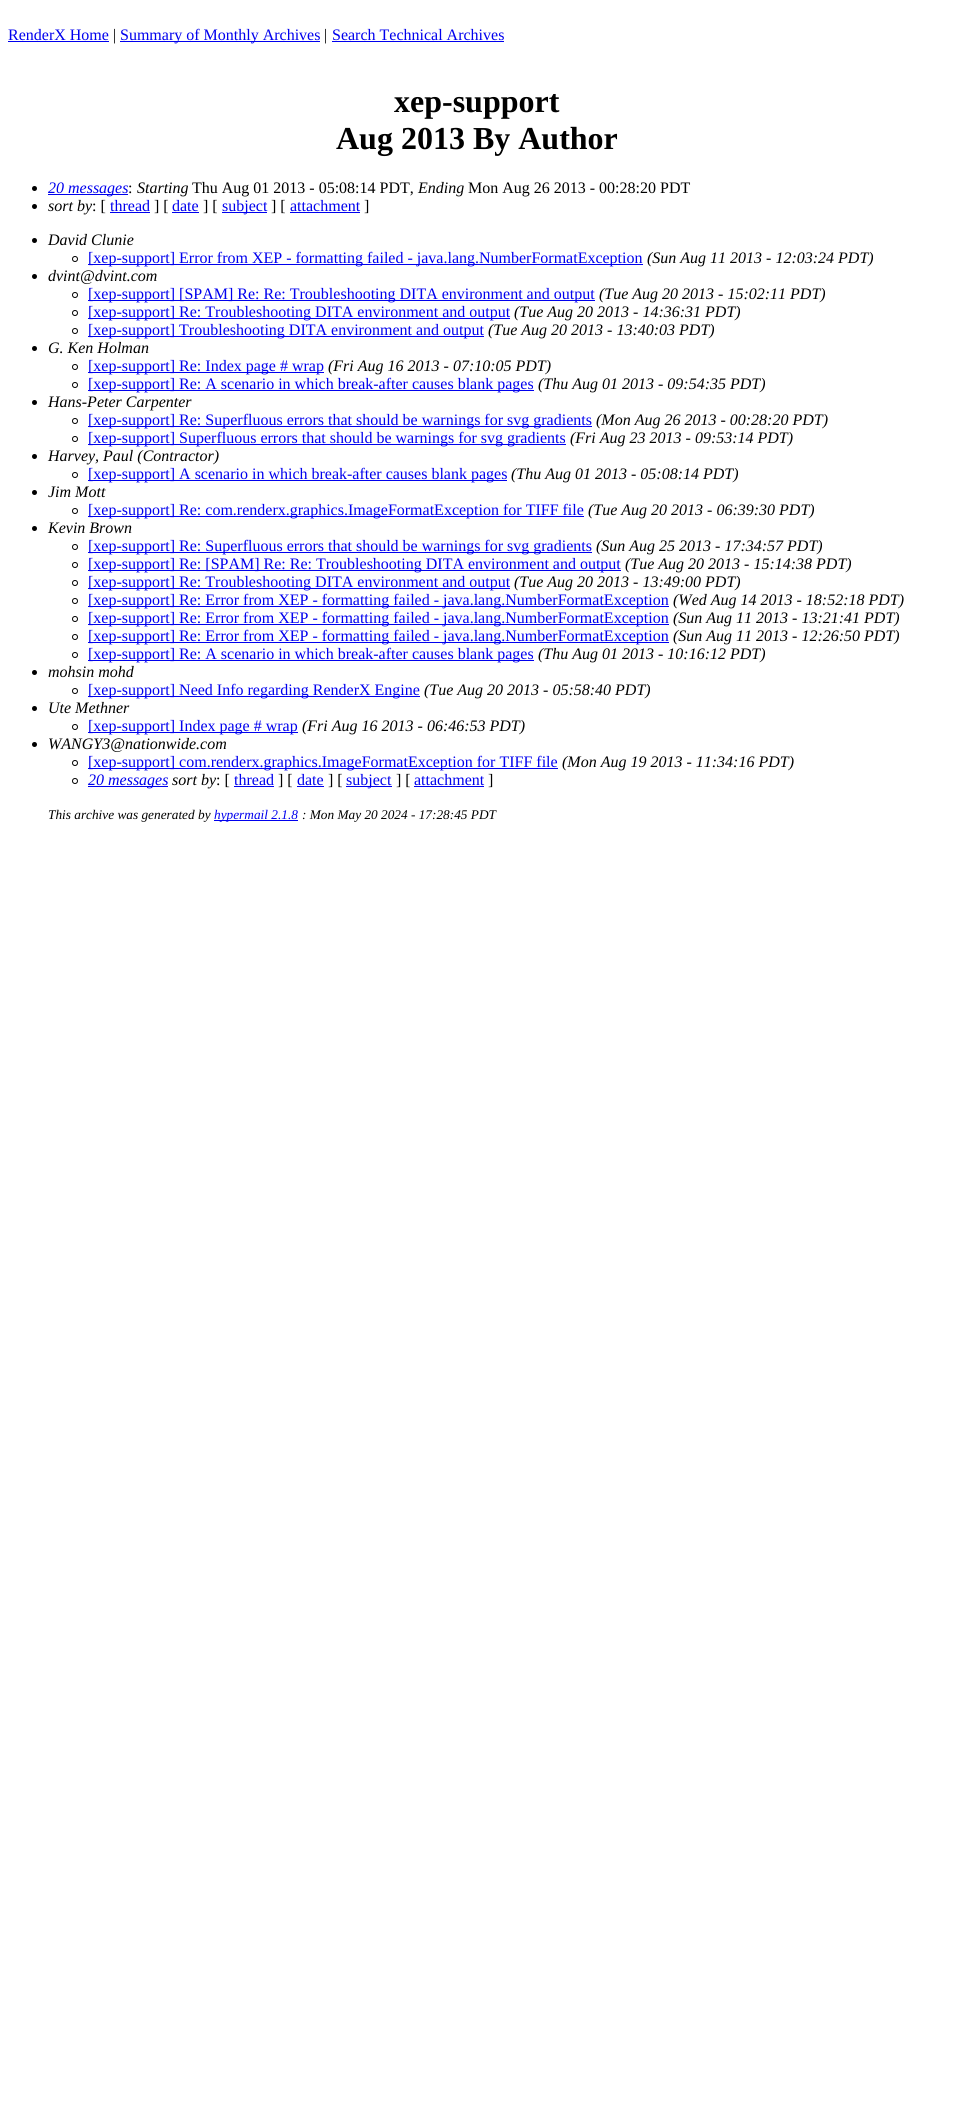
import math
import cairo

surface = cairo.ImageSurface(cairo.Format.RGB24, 953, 2104)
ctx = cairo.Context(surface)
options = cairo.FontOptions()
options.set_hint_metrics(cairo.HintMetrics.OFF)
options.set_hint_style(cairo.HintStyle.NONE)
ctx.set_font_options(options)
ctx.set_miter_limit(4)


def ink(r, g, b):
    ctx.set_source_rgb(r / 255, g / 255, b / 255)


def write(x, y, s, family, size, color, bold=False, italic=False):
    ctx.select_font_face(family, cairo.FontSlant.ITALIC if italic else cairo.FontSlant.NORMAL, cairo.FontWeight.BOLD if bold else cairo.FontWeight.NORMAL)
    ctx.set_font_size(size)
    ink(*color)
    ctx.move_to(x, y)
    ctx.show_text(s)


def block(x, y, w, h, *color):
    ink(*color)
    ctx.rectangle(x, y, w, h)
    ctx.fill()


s1 = dict(family="Liberation Serif", size=16, color=(0, 0, 238))
s2 = dict(family="Liberation Serif", size=16, color=(0, 0, 0))
s3 = dict(family="Liberation Serif", size=32, color=(0, 0, 0), bold=True)
s4 = dict(family="Liberation Serif", size=16, color=(0, 0, 238), italic=True)
s5 = dict(family="Liberation Serif", size=16, color=(0, 0, 0), italic=True)
s6 = dict(family="Liberation Serif", size=13.3, color=(0, 0, 0), italic=True)
s7 = dict(family="Liberation Serif", size=13.3, color=(0, 0, 238), italic=True)

ink(255, 255, 255)
ctx.paint()
write(8, 40, "RenderX Home", **s1)
block(8, 41, 101, 1, 0, 0, 238)
write(113, 40, "|", **s2)
block(120, 41, 200, 1, 0, 0, 238)
write(120, 40, "Summary of Monthly Archives", **s1)
write(324, 40, "|", **s2)
write(332, 40, "Search Technical Archives", **s1)
block(332, 41, 172, 1, 0, 0, 238)
write(394, 112, "xep-support", **s3)
write(336, 149, "Aug 2013 By Author", **s3)
ctx.new_path()
ctx.arc(34.5, 188.5, 2.5, 0, 2 * math.pi)
ctx.fill()
block(48, 194, 80, 1, 0, 0, 238)
write(48, 193, "20 messages", **s4)
write(128, 193, ":", **s2)
write(137, 193, "Starting", **s5)
write(192, 193, "Thu Aug 01 2013 - 05:08:14 PDT,", **s2)
write(418, 193, "Ending", **s5)
write(468, 193, "Mon Aug 26 2013 - 00:28:20 PDT", **s2)
ctx.new_path()
ctx.arc(34.5, 206.5, 2.5, 0, 2 * math.pi)
ctx.fill()
write(48, 211, "sort by", **s5)
write(92, 211, ": [", **s2)
write(110, 211, "thread", **s1)
block(110, 212, 40, 1, 0, 0, 238)
write(154, 211, "] [", **s2)
write(172, 211, "date", **s1)
block(172, 212, 27, 1, 0, 0, 238)
write(203, 211, "] [", **s2)
block(222, 212, 45, 1, 0, 0, 238)
write(222, 211, "subject", **s1)
write(271, 211, "] [", **s2)
write(290, 211, "attachment", **s1)
block(290, 212, 70, 1, 0, 0, 238)
write(364, 211, "]", **s2)
ctx.new_path()
ctx.arc(34.5, 240.5, 2.5, 0, 2 * math.pi)
ctx.fill()
write(48, 245, "David Clunie", **s5)
ctx.new_path()
ctx.arc(75, 259, 2.5, 0, 2 * math.pi)
ctx.set_line_width(1)
ctx.stroke()
block(88, 264, 555, 1, 0, 0, 238)
write(88, 263, "[xep-support] Error from XEP - formatting failed - java.lang.NumberFormatException", **s1)
write(647, 263, "(Sun Aug 11 2013 - 12:03:24 PDT)", **s5)
ctx.new_path()
ctx.arc(34.5, 276.5, 2.5, 0, 2 * math.pi)
ctx.fill()
write(48, 281, "dvint@dvint.com", **s5)
ctx.new_path()
ctx.arc(75, 295, 2.5, 0, 2 * math.pi)
ctx.stroke()
block(88, 300, 507, 1, 0, 0, 238)
write(88, 299, "[xep-support] [SPAM] Re: Re: Troubleshooting DITA environment and output", **s1)
write(599, 299, "(Tue Aug 20 2013 - 15:02:11 PDT)", **s5)
ctx.new_path()
ctx.arc(75, 313, 2.5, 0, 2 * math.pi)
ctx.stroke()
block(88, 318, 422, 1, 0, 0, 238)
write(88, 317, "[xep-support] Re: Troubleshooting DITA environment and output", **s1)
write(514, 317, "(Tue Aug 20 2013 - 14:36:31 PDT)", **s5)
ctx.new_path()
ctx.arc(75, 331, 2.5, 0, 2 * math.pi)
ctx.stroke()
block(88, 336, 396, 1, 0, 0, 238)
write(88, 335, "[xep-support] Troubleshooting DITA environment and output", **s1)
write(488, 335, "(Tue Aug 20 2013 - 13:40:03 PDT)", **s5)
ctx.new_path()
ctx.arc(34.5, 348.5, 2.5, 0, 2 * math.pi)
ctx.fill()
write(48, 353, "G. Ken Holman", **s5)
ctx.new_path()
ctx.arc(75, 367, 2.5, 0, 2 * math.pi)
ctx.stroke()
block(88, 372, 236, 1, 0, 0, 238)
write(88, 371, "[xep-support] Re: Index page # wrap", **s1)
write(328, 371, "(Fri Aug 16 2013 - 07:10:05 PDT)", **s5)
ctx.new_path()
ctx.arc(75, 385, 2.5, 0, 2 * math.pi)
ctx.stroke()
block(88, 390, 446, 1, 0, 0, 238)
write(88, 389, "[xep-support] Re: A scenario in which break-after causes blank pages", **s1)
write(538, 389, "(Thu Aug 01 2013 - 09:54:35 PDT)", **s5)
ctx.new_path()
ctx.arc(34.5, 402.5, 2.5, 0, 2 * math.pi)
ctx.fill()
write(48, 407, "Hans-Peter Carpenter", **s5)
ctx.new_path()
ctx.arc(75, 421, 2.5, 0, 2 * math.pi)
ctx.stroke()
block(88, 426, 504, 1, 0, 0, 238)
write(88, 425, "[xep-support] Re: Superfluous errors that should be warnings for svg gradients", **s1)
write(596, 425, "(Mon Aug 26 2013 - 00:28:20 PDT)", **s5)
ctx.new_path()
ctx.arc(75, 439, 2.5, 0, 2 * math.pi)
ctx.stroke()
block(88, 444, 478, 1, 0, 0, 238)
write(88, 443, "[xep-support] Superfluous errors that should be warnings for svg gradients", **s1)
write(570, 443, "(Fri Aug 23 2013 - 09:53:14 PDT)", **s5)
ctx.new_path()
ctx.arc(34.5, 456.5, 2.5, 0, 2 * math.pi)
ctx.fill()
write(48, 461, "Harvey, Paul (Contractor)", **s5)
ctx.new_path()
ctx.arc(75, 475, 2.5, 0, 2 * math.pi)
ctx.stroke()
block(88, 480, 419, 1, 0, 0, 238)
write(88, 479, "[xep-support] A scenario in which break-after causes blank pages", **s1)
write(511, 479, "(Thu Aug 01 2013 - 05:08:14 PDT)", **s5)
ctx.new_path()
ctx.arc(34.5, 492.5, 2.5, 0, 2 * math.pi)
ctx.fill()
write(48, 497, "Jim Mott", **s5)
ctx.new_path()
ctx.arc(75, 511, 2.5, 0, 2 * math.pi)
ctx.stroke()
block(88, 516, 496, 1, 0, 0, 238)
write(88, 515, "[xep-support] Re: com.renderx.graphics.ImageFormatException for TIFF file", **s1)
write(588, 515, "(Tue Aug 20 2013 - 06:39:30 PDT)", **s5)
ctx.new_path()
ctx.arc(34.5, 528.5, 2.5, 0, 2 * math.pi)
ctx.fill()
write(48, 533, "Kevin Brown", **s5)
ctx.new_path()
ctx.arc(75, 547, 2.5, 0, 2 * math.pi)
ctx.stroke()
block(88, 552, 504, 1, 0, 0, 238)
write(88, 551, "[xep-support] Re: Superfluous errors that should be warnings for svg gradients", **s1)
write(596, 551, "(Sun Aug 25 2013 - 17:34:57 PDT)", **s5)
ctx.new_path()
ctx.arc(75, 565, 2.5, 0, 2 * math.pi)
ctx.stroke()
block(88, 570, 533, 1, 0, 0, 238)
write(88, 569, "[xep-support] Re: [SPAM] Re: Re: Troubleshooting DITA environment and output", **s1)
write(625, 569, "(Tue Aug 20 2013 - 15:14:38 PDT)", **s5)
ctx.new_path()
ctx.arc(75, 583, 2.5, 0, 2 * math.pi)
ctx.stroke()
block(88, 588, 422, 1, 0, 0, 238)
write(88, 587, "[xep-support] Re: Troubleshooting DITA environment and output", **s1)
write(514, 587, "(Tue Aug 20 2013 - 13:49:00 PDT)", **s5)
ctx.new_path()
ctx.arc(75, 601, 2.5, 0, 2 * math.pi)
ctx.stroke()
block(88, 606, 581, 1, 0, 0, 238)
write(88, 605, "[xep-support] Re: Error from XEP - formatting failed - java.lang.NumberFormatException", **s1)
write(673, 605, "(Wed Aug 14 2013 - 18:52:18 PDT)", **s5)
ctx.new_path()
ctx.arc(75, 619, 2.5, 0, 2 * math.pi)
ctx.stroke()
block(88, 624, 581, 1, 0, 0, 238)
write(88, 623, "[xep-support] Re: Error from XEP - formatting failed - java.lang.NumberFormatException", **s1)
write(673, 623, "(Sun Aug 11 2013 - 13:21:41 PDT)", **s5)
ctx.new_path()
ctx.arc(75, 637, 2.5, 0, 2 * math.pi)
ctx.stroke()
block(88, 642, 581, 1, 0, 0, 238)
write(88, 641, "[xep-support] Re: Error from XEP - formatting failed - java.lang.NumberFormatException", **s1)
write(673, 641, "(Sun Aug 11 2013 - 12:26:50 PDT)", **s5)
ctx.new_path()
ctx.arc(75, 655, 2.5, 0, 2 * math.pi)
ctx.stroke()
block(88, 660, 446, 1, 0, 0, 238)
write(88, 659, "[xep-support] Re: A scenario in which break-after causes blank pages", **s1)
write(538, 659, "(Thu Aug 01 2013 - 10:16:12 PDT)", **s5)
ctx.new_path()
ctx.arc(34.5, 672.5, 2.5, 0, 2 * math.pi)
ctx.fill()
write(48, 677, "mohsin mohd", **s5)
ctx.new_path()
ctx.arc(75, 691, 2.5, 0, 2 * math.pi)
ctx.stroke()
block(88, 696, 332, 1, 0, 0, 238)
write(88, 695, "[xep-support] Need Info regarding RenderX Engine", **s1)
write(424, 695, "(Tue Aug 20 2013 - 05:58:40 PDT)", **s5)
ctx.new_path()
ctx.arc(34.5, 708.5, 2.5, 0, 2 * math.pi)
ctx.fill()
write(48, 713, "Ute Methner", **s5)
ctx.new_path()
ctx.arc(75, 727, 2.5, 0, 2 * math.pi)
ctx.stroke()
block(88, 732, 210, 1, 0, 0, 238)
write(88, 731, "[xep-support] Index page # wrap", **s1)
write(302, 731, "(Fri Aug 16 2013 - 06:46:53 PDT)", **s5)
ctx.new_path()
ctx.arc(34.5, 744.5, 2.5, 0, 2 * math.pi)
ctx.fill()
write(48, 749, "WANGY3@nationwide.com", **s5)
ctx.new_path()
ctx.arc(75, 763, 2.5, 0, 2 * math.pi)
ctx.stroke()
block(88, 768, 470, 1, 0, 0, 238)
write(88, 767, "[xep-support] com.renderx.graphics.ImageFormatException for TIFF file", **s1)
write(562, 767, "(Mon Aug 19 2013 - 11:34:16 PDT)", **s5)
ctx.new_path()
ctx.arc(75, 781, 2.5, 0, 2 * math.pi)
ctx.stroke()
block(88, 786, 80, 1, 0, 0, 238)
write(88, 785, "20 messages", **s4)
write(172, 785, "sort by", **s5)
write(216, 785, ": [", **s2)
write(234, 785, "thread", **s1)
block(234, 786, 40, 1, 0, 0, 238)
write(278, 785, "] [", **s2)
write(297, 785, "date", **s1)
block(297, 786, 27, 1, 0, 0, 238)
write(328, 785, "] [", **s2)
block(346, 786, 46, 1, 0, 0, 238)
write(346, 785, "subject", **s1)
write(396, 785, "] [", **s2)
write(414, 785, "attachment", **s1)
block(414, 786, 70, 1, 0, 0, 238)
write(488, 785, "]", **s2)
write(48, 819, "This archive was generated by", **s6)
block(214, 820, 84, 1, 0, 0, 238)
write(214, 819, "hypermail 2.1.8", **s7)
write(302, 819, ": Mon May 20 2024 - 17:28:45 PDT", **s6)
surface.write_to_png("screenshot.png")
